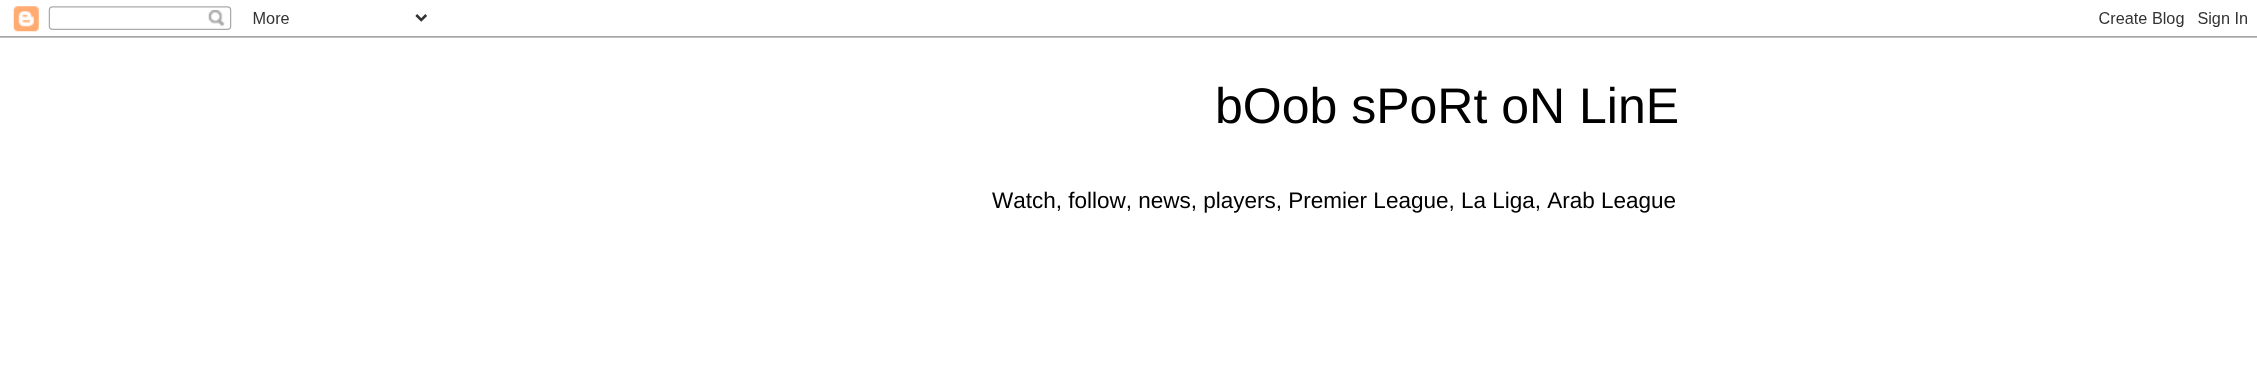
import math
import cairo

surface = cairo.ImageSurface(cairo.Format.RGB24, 2257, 379)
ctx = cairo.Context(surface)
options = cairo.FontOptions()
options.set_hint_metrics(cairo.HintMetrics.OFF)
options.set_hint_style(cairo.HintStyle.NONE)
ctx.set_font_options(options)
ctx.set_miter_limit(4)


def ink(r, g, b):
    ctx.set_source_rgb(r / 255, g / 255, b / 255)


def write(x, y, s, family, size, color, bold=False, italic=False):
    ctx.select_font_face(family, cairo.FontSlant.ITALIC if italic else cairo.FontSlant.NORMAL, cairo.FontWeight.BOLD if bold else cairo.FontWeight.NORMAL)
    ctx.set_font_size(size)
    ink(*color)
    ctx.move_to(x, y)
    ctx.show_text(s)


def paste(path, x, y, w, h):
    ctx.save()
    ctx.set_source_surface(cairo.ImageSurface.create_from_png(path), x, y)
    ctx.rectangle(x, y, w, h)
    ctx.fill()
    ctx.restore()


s1 = dict(family="Liberation Sans", size=50, color=(0, 0, 0))
s2 = dict(family="Liberation Sans", size=22.5, color=(0, 0, 0))

ink(255, 255, 255)
ctx.paint()
paste("pic1.png", 0, 6, 2257, 32)
write(1215, 123, "bOob sPoRt oN LinE", **s1)
write(992, 208, "Watch, follow, news, players, Premier League, La Liga, Arab League", **s2)
surface.write_to_png("screenshot.png")
